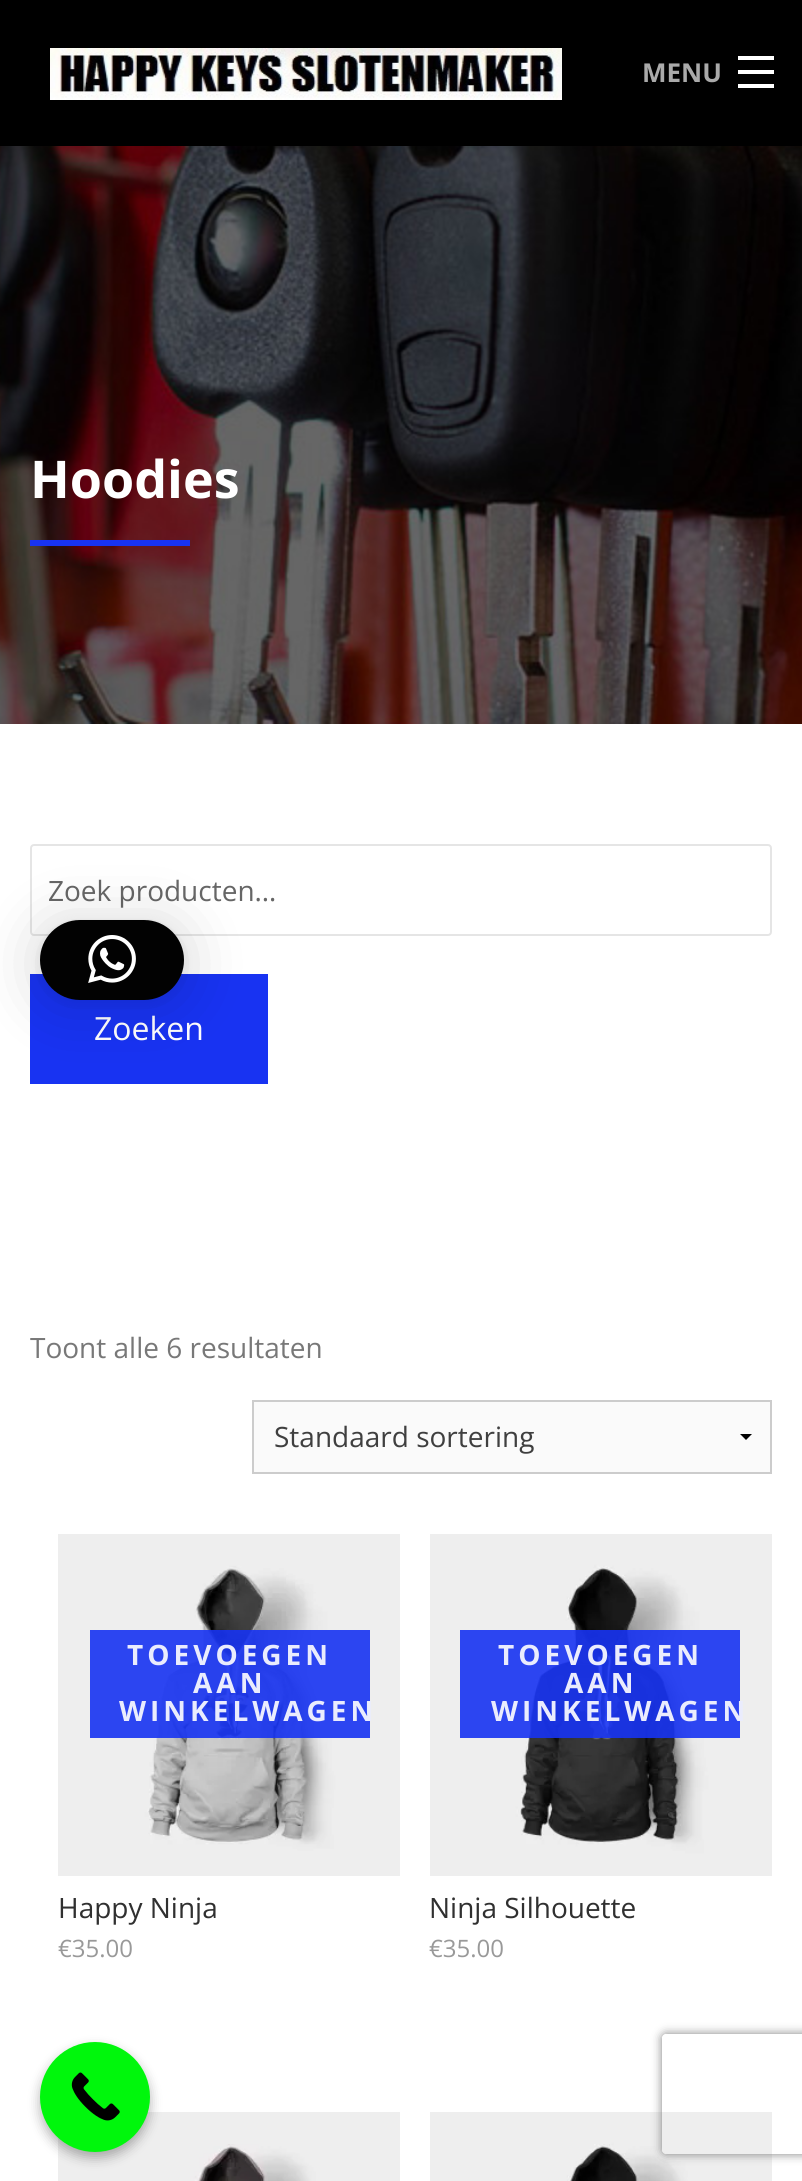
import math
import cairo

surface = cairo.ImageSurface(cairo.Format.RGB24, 802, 2181)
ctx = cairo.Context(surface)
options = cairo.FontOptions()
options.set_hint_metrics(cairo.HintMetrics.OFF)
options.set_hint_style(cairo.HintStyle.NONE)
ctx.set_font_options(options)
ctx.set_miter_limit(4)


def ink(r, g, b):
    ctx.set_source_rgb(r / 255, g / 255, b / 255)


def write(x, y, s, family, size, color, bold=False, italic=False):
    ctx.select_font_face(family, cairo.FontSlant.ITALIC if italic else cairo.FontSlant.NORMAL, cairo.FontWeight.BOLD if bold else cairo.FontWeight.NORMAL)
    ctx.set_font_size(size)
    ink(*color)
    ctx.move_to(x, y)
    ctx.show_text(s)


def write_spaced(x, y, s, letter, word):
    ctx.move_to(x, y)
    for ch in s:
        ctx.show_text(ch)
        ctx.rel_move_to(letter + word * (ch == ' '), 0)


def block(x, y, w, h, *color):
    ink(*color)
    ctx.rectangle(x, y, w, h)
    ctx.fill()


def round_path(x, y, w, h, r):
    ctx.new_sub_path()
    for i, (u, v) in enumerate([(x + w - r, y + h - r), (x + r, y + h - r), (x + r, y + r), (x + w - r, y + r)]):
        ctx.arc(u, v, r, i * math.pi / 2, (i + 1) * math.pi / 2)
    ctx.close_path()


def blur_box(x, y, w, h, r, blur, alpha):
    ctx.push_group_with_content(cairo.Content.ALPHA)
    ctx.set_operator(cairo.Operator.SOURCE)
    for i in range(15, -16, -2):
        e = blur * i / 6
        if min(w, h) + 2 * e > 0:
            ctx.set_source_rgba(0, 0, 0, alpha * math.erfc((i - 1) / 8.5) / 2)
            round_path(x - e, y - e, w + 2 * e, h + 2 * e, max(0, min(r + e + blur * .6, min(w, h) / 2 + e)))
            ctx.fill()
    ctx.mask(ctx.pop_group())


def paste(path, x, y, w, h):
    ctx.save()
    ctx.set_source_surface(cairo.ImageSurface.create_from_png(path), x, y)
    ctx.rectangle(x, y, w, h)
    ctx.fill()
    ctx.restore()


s1 = dict(family="Open Sans", size=26, color=(170, 170, 170), bold=True)
s2 = dict(family="Open Sans", size=52, color=(255, 255, 255), bold=True)
s3 = dict(family="Open Sans", size=28, color=(102, 102, 102))
s4 = dict(family="Open Sans", size=32, color=(255, 255, 255))
s5 = dict(family="Open Sans", size=28, color=(120, 120, 120))
s6 = dict(family="Open Sans", size=28, color=(63, 63, 63))
s7 = dict(family="Open Sans", size=28, color=(48, 48, 48))
s8 = dict(family="Open Sans", size=24, color=(153, 153, 153))

ink(255, 255, 255)
ctx.paint()
block(0, 0, 802, 146, 0, 0, 0)
paste("pic1.png", 50, 48, 512, 52)
write(642, 82, "MENU", **s1)
block(738, 84, 36, 4, 255, 255, 255)
block(738, 70, 36, 4, 255, 255, 255)
block(738, 56, 36, 4, 255, 255, 255)
paste("pic2.png", 0, 146, 802, 578)
write(30, 498, "Hoodies", **s2)
block(30, 540, 160, 6, 24, 51, 242)
round_path(31, 845, 740, 90, 3)
ink(229, 229, 229)
ctx.stroke()
write(48, 901, "Zoek producten…", **s3)
block(30, 974, 238, 110, 24, 51, 242)
write(94, 1040, "Zoeken", **s4)
write(30, 1358, "Toont alle 6 resultaten", **s5)
block(254, 1402, 516, 70, 250, 250, 250)
ink(0, 0, 0)
ctx.new_path()
ctx.move_to(752, 1434)
ctx.line_to(746, 1440)
ctx.line_to(740, 1434)
ctx.close_path()
ctx.fill()
ctx.rectangle(253, 1401, 518, 72)
ink(204, 204, 204)
ctx.stroke()
write(274, 1447, "Standaard sortering", **s6)
paste("pic3.png", 58, 1534, 342, 342)
ctx.set_source_rgba(0.094, 0.2, 0.949, 0.9)
ctx.rectangle(90, 1630, 280, 108)
ctx.fill()
ctx.select_font_face("Open Sans", cairo.FontSlant.NORMAL, cairo.FontWeight.BOLD)
ink(234, 236, 253)
write_spaced(127, 1665, "TOEVOEGEN", 4, 0)
write_spaced(193, 1693, "AAN", 4, 0)
write_spaced(119, 1721, "WINKELWAGEN", 4, 0)
write(58, 1918, "Happy Ninja", **s7)
write(58, 1957, "€35.00", **s8)
paste("pic4.png", 430, 1534, 342, 342)
ctx.set_source_rgba(0.094, 0.2, 0.949, 0.9)
ctx.rectangle(460, 1630, 280, 108)
ctx.fill()
ctx.select_font_face("Open Sans", cairo.FontSlant.NORMAL, cairo.FontWeight.BOLD)
ctx.set_font_size(28)
ink(234, 236, 253)
write_spaced(498, 1665, "TOEVOEGEN", 4, 0)
write_spaced(564, 1693, "AAN", 4, 0)
write_spaced(491, 1721, "WINKELWAGEN", 4, 0)
write(429, 1918, "Ninja Silhouette", **s7)
write(429, 1957, "€35.00", **s8)
paste("pic5.png", 58, 2112, 342, 69)
paste("pic6.png", 430, 2112, 342, 69)
ink(0, 0, 0)
blur_box(40, 924, 144, 80, 40, 32, 0.16)
blur_box(40, 922, 144, 80, 40, 6, 0.06)
ink(2, 2, 2)
round_path(40, 920, 144, 80, 40)
ctx.fill()
paste("pic7.png", 88, 935, 48, 48)
ink(0, 0, 0)
blur_box(40, 2048, 110, 110, 55, 6, 0.3)
ink(0, 247, 12)
ctx.arc(95, 2097, 55, 0, 2 * math.pi)
ctx.fill()
paste("pic8.png", 71, 2072, 49, 49)
ctx.save()
ctx.set_fill_rule(cairo.FillRule.EVEN_ODD)
ctx.new_path()
ctx.move_to(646, 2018)
ctx.line_to(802, 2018)
ctx.line_to(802, 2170)
ctx.line_to(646, 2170)
ctx.close_path()
ctx.move_to(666, 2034)
ctx.line_to(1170, 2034)
ctx.curve_to(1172, 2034, 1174, 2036, 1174, 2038)
ctx.line_to(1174, 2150)
ctx.curve_to(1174, 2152, 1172, 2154, 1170, 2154)
ctx.line_to(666, 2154)
ctx.curve_to(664, 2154, 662, 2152, 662, 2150)
ctx.line_to(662, 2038)
ctx.curve_to(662, 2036, 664, 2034, 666, 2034)
ctx.close_path()
ctx.clip()
ink(128, 128, 128)
blur_box(662, 2034, 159, 120, 4, 5, 1)
ctx.restore()
surface.write_to_png("screenshot.png")
